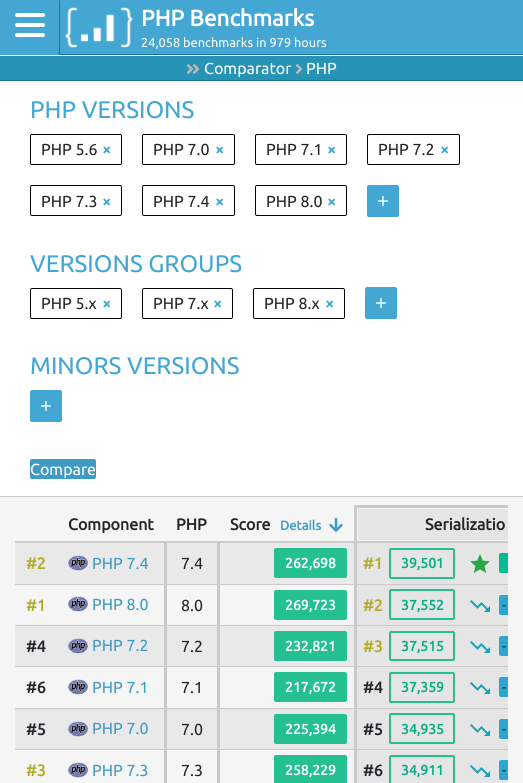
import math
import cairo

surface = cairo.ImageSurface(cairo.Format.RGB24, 523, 783)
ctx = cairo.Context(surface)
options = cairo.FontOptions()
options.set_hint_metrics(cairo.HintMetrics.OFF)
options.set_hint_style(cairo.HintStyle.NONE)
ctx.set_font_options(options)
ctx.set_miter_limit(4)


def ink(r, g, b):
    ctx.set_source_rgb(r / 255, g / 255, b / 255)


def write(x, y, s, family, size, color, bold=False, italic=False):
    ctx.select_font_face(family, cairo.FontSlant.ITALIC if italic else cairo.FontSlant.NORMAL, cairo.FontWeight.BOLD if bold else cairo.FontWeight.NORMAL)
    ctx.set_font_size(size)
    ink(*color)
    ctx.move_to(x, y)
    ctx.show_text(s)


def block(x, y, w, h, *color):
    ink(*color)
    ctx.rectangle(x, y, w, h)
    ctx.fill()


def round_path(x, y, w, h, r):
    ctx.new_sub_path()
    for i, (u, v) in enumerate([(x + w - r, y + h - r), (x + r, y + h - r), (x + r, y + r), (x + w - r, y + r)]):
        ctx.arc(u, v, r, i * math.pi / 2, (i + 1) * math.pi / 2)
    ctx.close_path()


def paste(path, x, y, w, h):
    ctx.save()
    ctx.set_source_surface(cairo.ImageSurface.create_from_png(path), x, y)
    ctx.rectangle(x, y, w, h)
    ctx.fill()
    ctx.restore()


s1 = dict(family="Ubuntu", size=22.5, color=(255, 255, 255), bold=True)
s2 = dict(family="Ubuntu", size=12.75, color=(255, 255, 255))
s3 = dict(family="Ubuntu", size=16, color=(255, 255, 255))
s4 = dict(family="Ubuntu", size=24, color=(68, 166, 211))
s5 = dict(family="Ubuntu", size=16, color=(33, 37, 41))
s6 = dict(family="Ubuntu", size=16, color=(44, 165, 207), bold=True)
s7 = dict(family="Ubuntu", size=16, color=(33, 37, 41), bold=True)
s8 = dict(family="Ubuntu", size=13, color=(63, 154, 197), bold=True)
s9 = dict(family="Ubuntu", size=16, color=(179, 171, 35), bold=True)
s10 = dict(family="Ubuntu", size=16, color=(63, 154, 197))
s11 = dict(family="Ubuntu", size=14, color=(255, 255, 255), bold=True)
s12 = dict(family="Ubuntu", size=14, color=(0, 176, 133), bold=True)
s13 = dict(family="Ubuntu", size=14, color=(4, 56, 68))

ink(38, 147, 183)
ctx.paint()
block(0, 0, 523, 55, 68, 166, 211)
ink(29, 114, 153)
ctx.new_path()
ctx.move_to(60, 0)
ctx.line_to(60, 55)
ctx.line_to(59, 54)
ctx.line_to(59, 1)
ctx.close_path()
ctx.fill()
ink(255, 255, 255)
round_path(15, 13, 30, 4, 2)
ctx.fill()
round_path(15, 23, 30, 4, 2)
ctx.fill()
round_path(15, 33, 30, 4, 2)
ctx.fill()
block(60, 54, 463, 1, 29, 114, 153)
paste("pic1.png", 65, 7, 68, 41)
write(141, 26, "PHP Benchmarks", **s1)
write(141, 47, "24,058 benchmarks in 979 hours", **s2)
block(0, 55, 523, 1, 255, 255, 255)
block(0, 80, 523, 1, 29, 114, 153)
paste("pic2.png", 186, 64, 14, 10)
write(204, 74, "Comparator", **s3)
paste("pic3.png", 295, 64, 8, 10)
write(306, 74, "PHP", **s3)
block(0, 497, 523, 286, 245, 245, 245)
block(0, 81, 523, 415, 255, 255, 255)
block(0, 496, 523, 1, 202, 202, 202)
write(30, 118, "PHP VERSIONS", **s4)
round_path(30.5, 134.5, 91, 30, 1.5)
ink(0, 0, 0)
ctx.set_line_width(1)
ctx.stroke()
write(41, 155, "PHP 5.6", **s5)
write(102, 155, "×", **s6)
round_path(142.5, 134.5, 92, 30, 1.5)
ink(0, 0, 0)
ctx.stroke()
write(153, 155, "PHP 7.0", **s5)
write(215, 155, "×", **s6)
round_path(255.5, 134.5, 91, 30, 1.5)
ink(0, 0, 0)
ctx.stroke()
write(266, 155, "PHP 7.1", **s5)
write(327, 155, "×", **s6)
round_path(367.5, 134.5, 92, 30, 1.5)
ink(0, 0, 0)
ctx.stroke()
write(378, 155, "PHP 7.2", **s5)
write(440, 155, "×", **s6)
round_path(30.5, 185.5, 91, 30, 1.5)
ink(0, 0, 0)
ctx.stroke()
write(41, 207, "PHP 7.3", **s5)
write(102, 207, "×", **s6)
round_path(142.5, 185.5, 92, 30, 1.5)
ink(0, 0, 0)
ctx.stroke()
write(153, 207, "PHP 7.4", **s5)
write(215, 207, "×", **s6)
round_path(255.5, 185.5, 91, 30, 1.5)
ink(0, 0, 0)
ctx.stroke()
write(266, 207, "PHP 8.0", **s5)
write(327, 207, "×", **s6)
ink(68, 166, 211)
round_path(367, 185, 32, 32, 2)
ctx.fill()
paste("pic4.png", 378, 196, 10, 10)
write(30, 272, "VERSIONS GROUPS", **s4)
round_path(30.5, 288.5, 91, 30, 1.5)
ink(0, 0, 0)
ctx.stroke()
write(41, 309, "PHP 5.x", **s5)
write(102, 309, "×", **s6)
round_path(142.5, 288.5, 90, 30, 1.5)
ink(0, 0, 0)
ctx.stroke()
write(153, 309, "PHP 7.x", **s5)
write(213, 309, "×", **s6)
round_path(253.5, 288.5, 91, 30, 1.5)
ink(0, 0, 0)
ctx.stroke()
write(264, 309, "PHP 8.x", **s5)
write(325, 309, "×", **s6)
ink(68, 166, 211)
round_path(365, 287, 32, 32, 2)
ctx.fill()
paste("pic4.png", 376, 298, 10, 10)
write(30, 374, "MINORS VERSIONS", **s4)
round_path(30, 390, 32, 32, 2)
ctx.fill()
paste("pic4.png", 41, 401, 10, 10)
ink(63, 154, 197)
round_path(30, 459, 66, 20, 2)
ctx.fill()
write(30, 475, "Compare", **s3)
write(68, 530, "Component", **s7)
write(176, 530, "PHP", **s7)
write(230, 530, "Score", **s7)
write(280, 530, "Details", **s8)
paste("pic5.png", 329, 518, 14, 14)
block(358, 509, 150, 31, 229, 229, 229)
block(15, 541, 493, 2, 202, 202, 202)
block(354, 505, 154, 3, 202, 202, 202)
block(15, 584, 493, 1, 202, 202, 202)
block(15, 625, 493, 1, 202, 202, 202)
block(15, 666, 493, 1, 202, 202, 202)
block(15, 708, 493, 1, 202, 202, 202)
block(15, 749, 493, 1, 202, 202, 202)
block(354, 541, 3, 242, 202, 202, 202)
block(354, 505, 3, 39, 202, 202, 202)
write(425, 530, "Serializatio", **s7)
block(15, 543, 339, 41, 233, 233, 233)
write(26, 569, "#2", **s9)
paste("pic6.png", 68, 555, 20, 16)
write(92, 569, "PHP 7.4", **s10)
write(181, 569, "7.4", **s5)
ink(37, 192, 146)
round_path(274, 548, 73, 30, 2)
ctx.fill()
write(285, 568, "262,698", **s11)
block(357, 543, 151, 41, 229, 229, 229)
write(363, 569, "#1", **s9)
round_path(390, 549, 64, 29, 1)
ink(37, 192, 146)
ctx.set_line_width(2)
ctx.stroke()
write(401, 568, "39,501", **s12)
paste("pic7.png", 470, 554, 20, 19)
ink(0, 188, 146)
ctx.new_path()
ctx.move_to(501, 553)
ctx.line_to(508, 553)
ctx.line_to(508, 573)
ctx.line_to(501, 573)
ctx.curve_to(500, 573, 499, 572, 499, 571)
ctx.line_to(499, 555)
ctx.curve_to(499, 554, 500, 553, 501, 553)
ctx.close_path()
ctx.fill()
write(26, 611, "#1", **s9)
paste("pic8.png", 68, 596, 20, 16)
write(92, 610, "PHP 8.0", **s10)
write(181, 611, "8.0", **s5)
ink(37, 192, 146)
round_path(274, 590, 73, 30, 2)
ctx.fill()
write(285, 610, "269,723", **s11)
block(357, 585, 151, 40, 229, 229, 229)
write(363, 611, "#2", **s9)
round_path(390, 590, 64, 29, 1)
ink(37, 192, 146)
ctx.stroke()
write(401, 610, "37,552", **s12)
paste("pic9.png", 470, 600, 20, 12)
ink(44, 165, 207)
ctx.new_path()
ctx.move_to(501, 595)
ctx.line_to(508, 595)
ctx.line_to(508, 615)
ctx.line_to(501, 615)
ctx.curve_to(500, 615, 499, 614, 499, 613)
ctx.line_to(499, 597)
ctx.curve_to(499, 596, 500, 595, 501, 595)
ctx.close_path()
ctx.fill()
write(502, 610, "-", **s13)
block(15, 626, 339, 40, 233, 233, 233)
write(26, 652, "#4", **s7)
paste("pic10.png", 68, 638, 20, 16)
write(92, 651, "PHP 7.2", **s10)
write(181, 652, "7.2", **s5)
ink(37, 192, 146)
round_path(274, 631, 73, 30, 2)
ctx.fill()
write(285, 651, "232,821", **s11)
block(357, 626, 151, 40, 229, 229, 229)
write(363, 652, "#3", **s9)
round_path(390, 632, 64, 28, 1)
ink(37, 192, 146)
ctx.stroke()
write(401, 651, "37,515", **s12)
paste("pic9.png", 470, 641, 20, 12)
ink(44, 165, 207)
ctx.new_path()
ctx.move_to(501, 636)
ctx.line_to(508, 636)
ctx.line_to(508, 656)
ctx.line_to(501, 656)
ctx.curve_to(500, 656, 499, 655, 499, 654)
ctx.line_to(499, 638)
ctx.curve_to(499, 637, 500, 636, 501, 636)
ctx.close_path()
ctx.fill()
write(502, 651, "-", **s13)
write(26, 693, "#6", **s7)
paste("pic8.png", 68, 679, 20, 16)
write(92, 693, "PHP 7.1", **s10)
write(181, 693, "7.1", **s5)
ink(37, 192, 146)
round_path(274, 672, 73, 30, 2)
ctx.fill()
write(285, 692, "217,672", **s11)
block(357, 667, 151, 41, 229, 229, 229)
write(363, 693, "#4", **s7)
round_path(390, 673, 64, 29, 1)
ink(37, 192, 146)
ctx.stroke()
write(401, 692, "37,359", **s12)
paste("pic9.png", 470, 682, 20, 12)
ink(44, 165, 207)
ctx.new_path()
ctx.move_to(501, 677)
ctx.line_to(508, 677)
ctx.line_to(508, 697)
ctx.line_to(501, 697)
ctx.curve_to(500, 697, 499, 696, 499, 695)
ctx.line_to(499, 679)
ctx.curve_to(499, 678, 500, 677, 501, 677)
ctx.close_path()
ctx.fill()
write(502, 692, "-", **s13)
block(15, 709, 339, 40, 233, 233, 233)
write(26, 735, "#5", **s7)
paste("pic10.png", 68, 721, 20, 16)
write(92, 734, "PHP 7.0", **s10)
write(181, 735, "7.0", **s5)
ink(37, 192, 146)
round_path(274, 714, 73, 30, 2)
ctx.fill()
write(285, 734, "225,394", **s11)
block(357, 709, 151, 40, 229, 229, 229)
write(363, 735, "#5", **s7)
round_path(390, 714, 64, 29, 1)
ink(37, 192, 146)
ctx.stroke()
write(401, 734, "34,935", **s12)
paste("pic9.png", 470, 724, 20, 12)
ink(44, 165, 207)
ctx.new_path()
ctx.move_to(501, 719)
ctx.line_to(508, 719)
ctx.line_to(508, 739)
ctx.line_to(501, 739)
ctx.curve_to(500, 739, 499, 738, 499, 737)
ctx.line_to(499, 721)
ctx.curve_to(499, 720, 500, 719, 501, 719)
ctx.close_path()
ctx.fill()
write(502, 734, "-", **s13)
write(26, 776, "#3", **s9)
paste("pic11.png", 68, 762, 20, 16)
write(92, 776, "PHP 7.3", **s10)
block(164, 541, 3, 242, 202, 202, 202)
write(181, 776, "7.3", **s5)
block(217, 541, 3, 242, 202, 202, 202)
ink(37, 192, 146)
round_path(274, 755, 73, 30, 2)
ctx.fill()
write(285, 775, "258,229", **s11)
block(357, 750, 151, 33, 229, 229, 229)
write(363, 776, "#6", **s7)
round_path(390, 756, 64, 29, 1)
ink(37, 192, 146)
ctx.stroke()
write(401, 775, "34,911", **s12)
paste("pic9.png", 470, 765, 20, 12)
ink(44, 165, 207)
ctx.new_path()
ctx.move_to(501, 760)
ctx.line_to(508, 760)
ctx.line_to(508, 780)
ctx.line_to(501, 780)
ctx.curve_to(500, 780, 499, 779, 499, 778)
ctx.line_to(499, 762)
ctx.curve_to(499, 761, 500, 760, 501, 760)
ctx.close_path()
ctx.fill()
write(502, 775, "-", **s13)
surface.write_to_png("screenshot.png")
